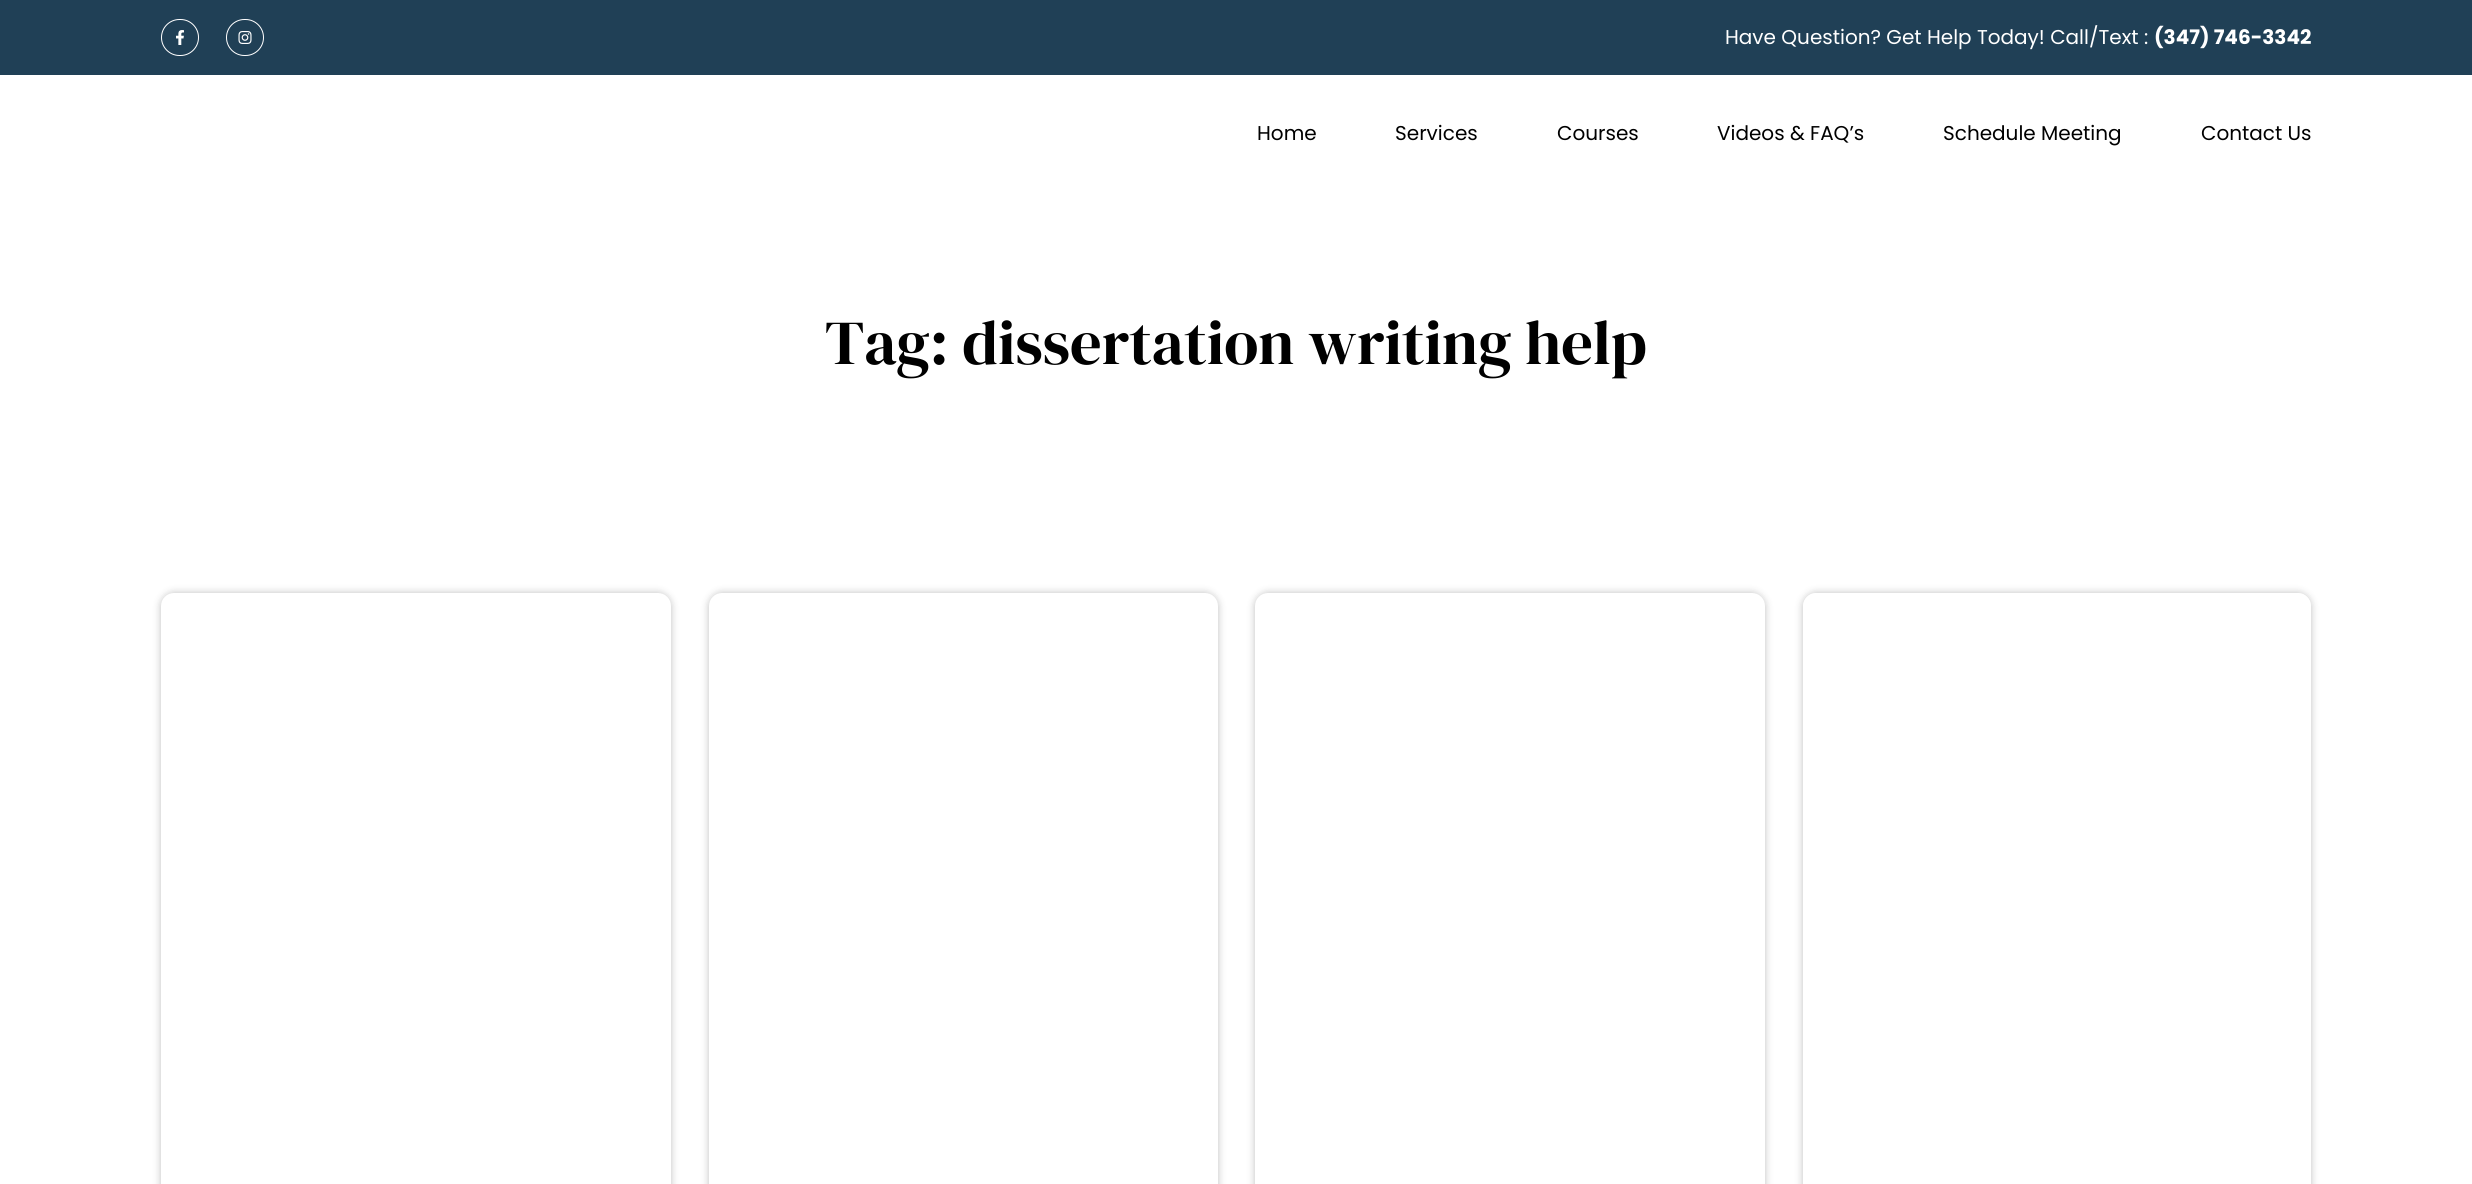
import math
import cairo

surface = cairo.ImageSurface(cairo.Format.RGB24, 2472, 1184)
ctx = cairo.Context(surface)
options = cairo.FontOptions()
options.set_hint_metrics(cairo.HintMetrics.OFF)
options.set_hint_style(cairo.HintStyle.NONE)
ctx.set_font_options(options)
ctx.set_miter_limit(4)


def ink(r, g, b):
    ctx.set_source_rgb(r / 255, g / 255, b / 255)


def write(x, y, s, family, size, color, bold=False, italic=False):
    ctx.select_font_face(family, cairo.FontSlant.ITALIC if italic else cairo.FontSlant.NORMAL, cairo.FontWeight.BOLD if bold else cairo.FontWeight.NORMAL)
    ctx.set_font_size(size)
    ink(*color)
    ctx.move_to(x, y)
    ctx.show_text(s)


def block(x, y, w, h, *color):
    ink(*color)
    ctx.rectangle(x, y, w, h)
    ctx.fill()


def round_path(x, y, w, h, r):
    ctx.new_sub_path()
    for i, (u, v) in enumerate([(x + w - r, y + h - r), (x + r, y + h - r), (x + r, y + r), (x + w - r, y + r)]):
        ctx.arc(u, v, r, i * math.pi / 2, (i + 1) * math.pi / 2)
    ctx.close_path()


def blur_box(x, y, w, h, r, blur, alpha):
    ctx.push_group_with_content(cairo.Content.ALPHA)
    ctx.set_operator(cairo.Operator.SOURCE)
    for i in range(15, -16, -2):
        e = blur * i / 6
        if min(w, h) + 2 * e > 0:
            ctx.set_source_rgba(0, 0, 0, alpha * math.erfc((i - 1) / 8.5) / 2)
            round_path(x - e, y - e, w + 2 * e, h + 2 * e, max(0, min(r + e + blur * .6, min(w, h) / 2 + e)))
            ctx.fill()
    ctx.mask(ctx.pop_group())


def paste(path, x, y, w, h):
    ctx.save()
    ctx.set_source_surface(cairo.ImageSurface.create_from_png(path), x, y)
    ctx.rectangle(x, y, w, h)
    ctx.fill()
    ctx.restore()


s1 = dict(family="Poppins", size=20, color=(255, 255, 255))
s2 = dict(family="Poppins", size=20, color=(255, 255, 255), bold=True)
s3 = dict(family="Poppins", size=20, color=(0, 0, 0))
s4 = dict(family="DM Serif Display", size=62.5, color=(0, 0, 0))

ink(255, 255, 255)
ctx.paint()
block(0, 0, 2472, 75, 32, 64, 86)
round_path(161.5, 19.5, 37, 36, 18)
ink(255, 255, 255)
ctx.set_line_width(1)
ctx.stroke()
paste("pic1.png", 176, 30, 8, 15)
round_path(226.5, 19.5, 37, 36, 18)
ctx.stroke()
paste("pic2.png", 238, 31, 14, 13)
write(1725, 44, "Have Question? Get Help Today! Call/Text :", **s1)
write(2154, 44, "(347) 746-3342", **s2)
write(1257, 140, "Home", **s3)
write(1395, 140, "Services", **s3)
write(1557, 140, "Courses", **s3)
write(1717, 140, "Videos & FAQ’s", **s3)
write(1943, 140, "Schedule Meeting", **s3)
write(2201, 140, "Contact Us", **s3)
write(825, 364, "Tag: dissertation writing help", **s4)
ink(0, 0, 0)
blur_box(161, 593, 510, 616, 13, 4, 0.25)
ink(255, 255, 255)
round_path(161, 593, 510, 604, 13)
ctx.fill()
ink(0, 0, 0)
blur_box(709, 593, 509, 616, 13, 4, 0.25)
ink(255, 255, 255)
round_path(709, 593, 509, 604, 13)
ctx.fill()
ink(0, 0, 0)
blur_box(1255, 593, 510, 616, 13, 4, 0.25)
ink(255, 255, 255)
round_path(1255, 593, 510, 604, 13)
ctx.fill()
ctx.save()
ctx.set_fill_rule(cairo.FillRule.EVEN_ODD)
ctx.new_path()
ctx.move_to(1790, 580)
ctx.line_to(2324, 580)
ctx.line_to(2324, 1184)
ctx.line_to(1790, 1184)
ctx.close_path()
ctx.move_to(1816, 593)
ctx.line_to(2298, 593)
ctx.curve_to(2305, 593, 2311, 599, 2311, 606)
ctx.line_to(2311, 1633)
ctx.curve_to(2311, 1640, 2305, 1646, 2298, 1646)
ctx.line_to(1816, 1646)
ctx.curve_to(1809, 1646, 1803, 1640, 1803, 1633)
ctx.line_to(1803, 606)
ctx.curve_to(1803, 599, 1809, 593, 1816, 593)
ctx.close_path()
ctx.clip()
ink(0, 0, 0)
blur_box(1803, 593, 508, 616, 13, 4, 0.25)
ctx.restore()
surface.write_to_png("screenshot.png")
